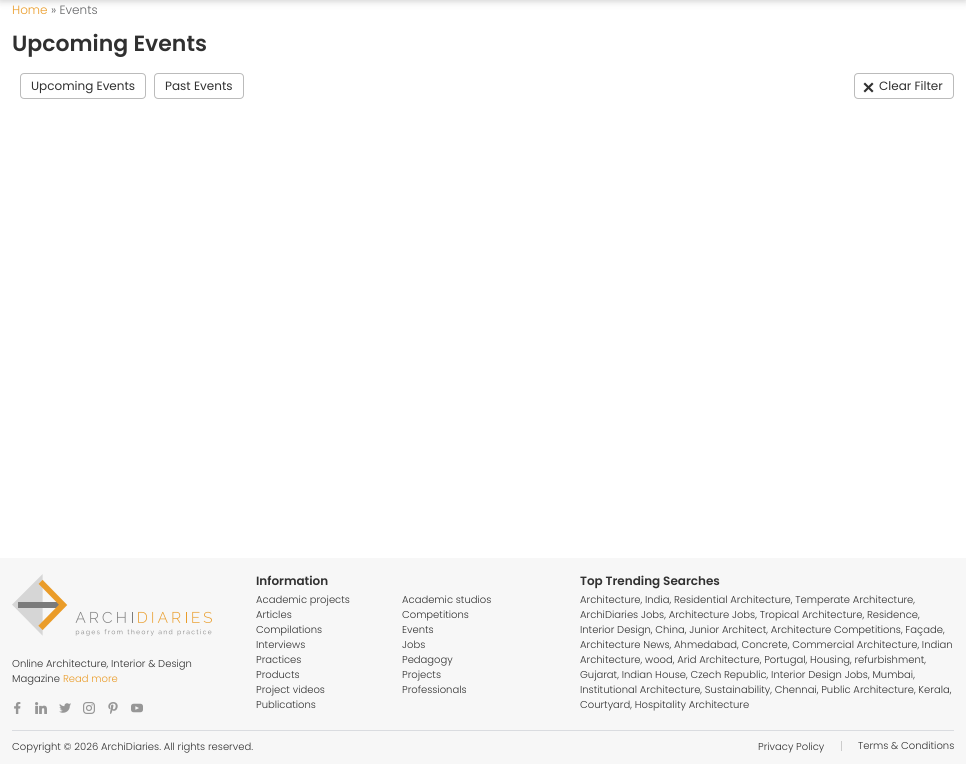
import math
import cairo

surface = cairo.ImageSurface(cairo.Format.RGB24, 966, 764)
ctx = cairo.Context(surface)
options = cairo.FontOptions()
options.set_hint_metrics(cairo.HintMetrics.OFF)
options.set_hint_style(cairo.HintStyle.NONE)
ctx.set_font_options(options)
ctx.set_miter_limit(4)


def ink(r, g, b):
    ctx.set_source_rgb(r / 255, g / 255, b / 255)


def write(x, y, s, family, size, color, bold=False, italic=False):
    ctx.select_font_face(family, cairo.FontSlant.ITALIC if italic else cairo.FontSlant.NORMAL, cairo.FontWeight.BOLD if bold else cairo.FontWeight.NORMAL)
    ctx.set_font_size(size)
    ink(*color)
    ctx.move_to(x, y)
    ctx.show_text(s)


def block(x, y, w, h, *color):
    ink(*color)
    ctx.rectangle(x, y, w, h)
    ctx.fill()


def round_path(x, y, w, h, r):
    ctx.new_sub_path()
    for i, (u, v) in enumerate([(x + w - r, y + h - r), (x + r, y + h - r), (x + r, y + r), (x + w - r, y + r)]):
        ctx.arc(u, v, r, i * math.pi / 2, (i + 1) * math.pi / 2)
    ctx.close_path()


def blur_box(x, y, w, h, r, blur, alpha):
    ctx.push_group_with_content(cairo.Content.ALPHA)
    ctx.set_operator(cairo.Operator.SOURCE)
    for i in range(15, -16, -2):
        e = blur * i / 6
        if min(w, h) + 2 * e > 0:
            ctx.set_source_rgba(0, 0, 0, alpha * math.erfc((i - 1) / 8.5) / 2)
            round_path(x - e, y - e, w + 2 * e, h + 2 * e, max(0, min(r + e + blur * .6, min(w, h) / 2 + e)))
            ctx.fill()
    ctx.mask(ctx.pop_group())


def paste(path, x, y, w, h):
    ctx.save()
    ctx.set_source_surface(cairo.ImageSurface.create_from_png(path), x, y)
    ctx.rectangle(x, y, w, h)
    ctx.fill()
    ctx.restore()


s1 = dict(family="Poppins Light", size=12, color=(234, 156, 41))
s2 = dict(family="Poppins Light", size=12, color=(99, 100, 102))
s3 = dict(family="Poppins SemiBold", size=22, color=(48, 48, 48))
s4 = dict(family="Poppins", size=12, color=(48, 48, 48))
s5 = dict(family="Poppins Light", size=10, color=(48, 48, 48))
s6 = dict(family="Poppins Light", size=10, color=(234, 156, 41))
s7 = dict(family="Poppins SemiBold", size=12, color=(48, 48, 48))

ink(255, 255, 255)
ctx.paint()
ink(0, 0, 0)
blur_box(0, -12, 966, 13, 0, 4, 0.2)
write(12, 14, "Home", **s1)
write(51, 14, "» Events", **s2)
write(12, 51, "Upcoming Events", **s3)
round_path(20.5, 73.5, 125, 25, 3.5)
ink(187, 187, 187)
ctx.set_line_width(1)
ctx.stroke()
write(31, 90, "Upcoming Events", **s4)
round_path(154.5, 73.5, 89, 25, 3.5)
ink(187, 187, 187)
ctx.stroke()
write(165, 90, "Past Events", **s4)
round_path(854.5, 73.5, 99, 25, 3.5)
ink(187, 187, 187)
ctx.stroke()
ink(48, 48, 48)
ctx.new_path()
ctx.move_to(872, 82.5)
ctx.line_to(873.5, 84)
ctx.line_to(865, 92.5)
ctx.line_to(863.5, 91)
ctx.close_path()
ctx.fill()
write(879, 90, "Clear Filter", **s4)
ctx.new_path()
ctx.move_to(863.5, 84)
ctx.line_to(865, 82.5)
ctx.line_to(873.5, 91)
ctx.line_to(872, 92.5)
ctx.close_path()
ctx.fill()
block(0, 558, 966, 206, 247, 247, 247)
paste("pic1.png", 12, 574, 200, 62)
write(12, 667, "Online Architecture, Interior & Design", **s5)
write(12, 682, "Magazine", **s5)
write(63, 682, "Read more", **s6)
paste("pic2.png", 14, 702, 7, 12)
paste("pic3.png", 35, 702, 12, 12)
paste("pic4.png", 59, 703, 12, 10)
paste("pic5.png", 83, 702, 12, 12)
paste("pic6.png", 108, 702, 10, 12)
paste("pic7.png", 131, 703, 12, 10)
write(256, 585, "Information", **s7)
write(256, 603, "Academic projects", **s5)
write(402, 603, "Academic studios", **s5)
write(256, 618, "Articles", **s5)
write(402, 618, "Competitions", **s5)
write(256, 633, "Compilations", **s5)
write(402, 633, "Events", **s5)
write(256, 648, "Interviews", **s5)
write(402, 648, "Jobs", **s5)
write(256, 663, "Practices", **s5)
write(402, 663, "Pedagogy", **s5)
write(256, 678, "Products", **s5)
write(402, 678, "Projects", **s5)
write(256, 693, "Project videos", **s5)
write(402, 693, "Professionals", **s5)
write(256, 708, "Publications", **s5)
write(580, 585, "Top Trending Searches", **s7)
write(580, 603, "Architecture, India, Residential Architecture, Temperate Architecture,", **s5)
write(580, 618, "ArchiDiaries Jobs, Architecture Jobs, Tropical Architecture, Residence,", **s5)
write(580, 633, "Interior Design, China, Junior Architect, Architecture Competitions, Façade,", **s5)
write(580, 648, "Architecture News, Ahmedabad, Concrete, Commercial Architecture, Indian", **s5)
write(580, 663, "Architecture, wood, Arid Architecture, Portugal, Housing, refurbishment,", **s5)
write(580, 678, "Gujarat, Indian House, Czech Republic, Interior Design Jobs, Mumbai,", **s5)
write(580, 693, "Institutional Architecture, Sustainability, Chennai, Public Architecture, Kerala,", **s5)
write(580, 708, "Courtyard, Hospitality Architecture", **s5)
block(12, 730, 942, 1, 218, 220, 224)
write(12, 750, "Copyright © 2026 ArchiDiaries. All rights reserved.", **s5)
write(758, 750, "Privacy Policy", **s5)
block(841, 741, 1, 10, 204, 204, 204)
write(858, 749, "Terms & Conditions", **s5)
surface.write_to_png("screenshot.png")
